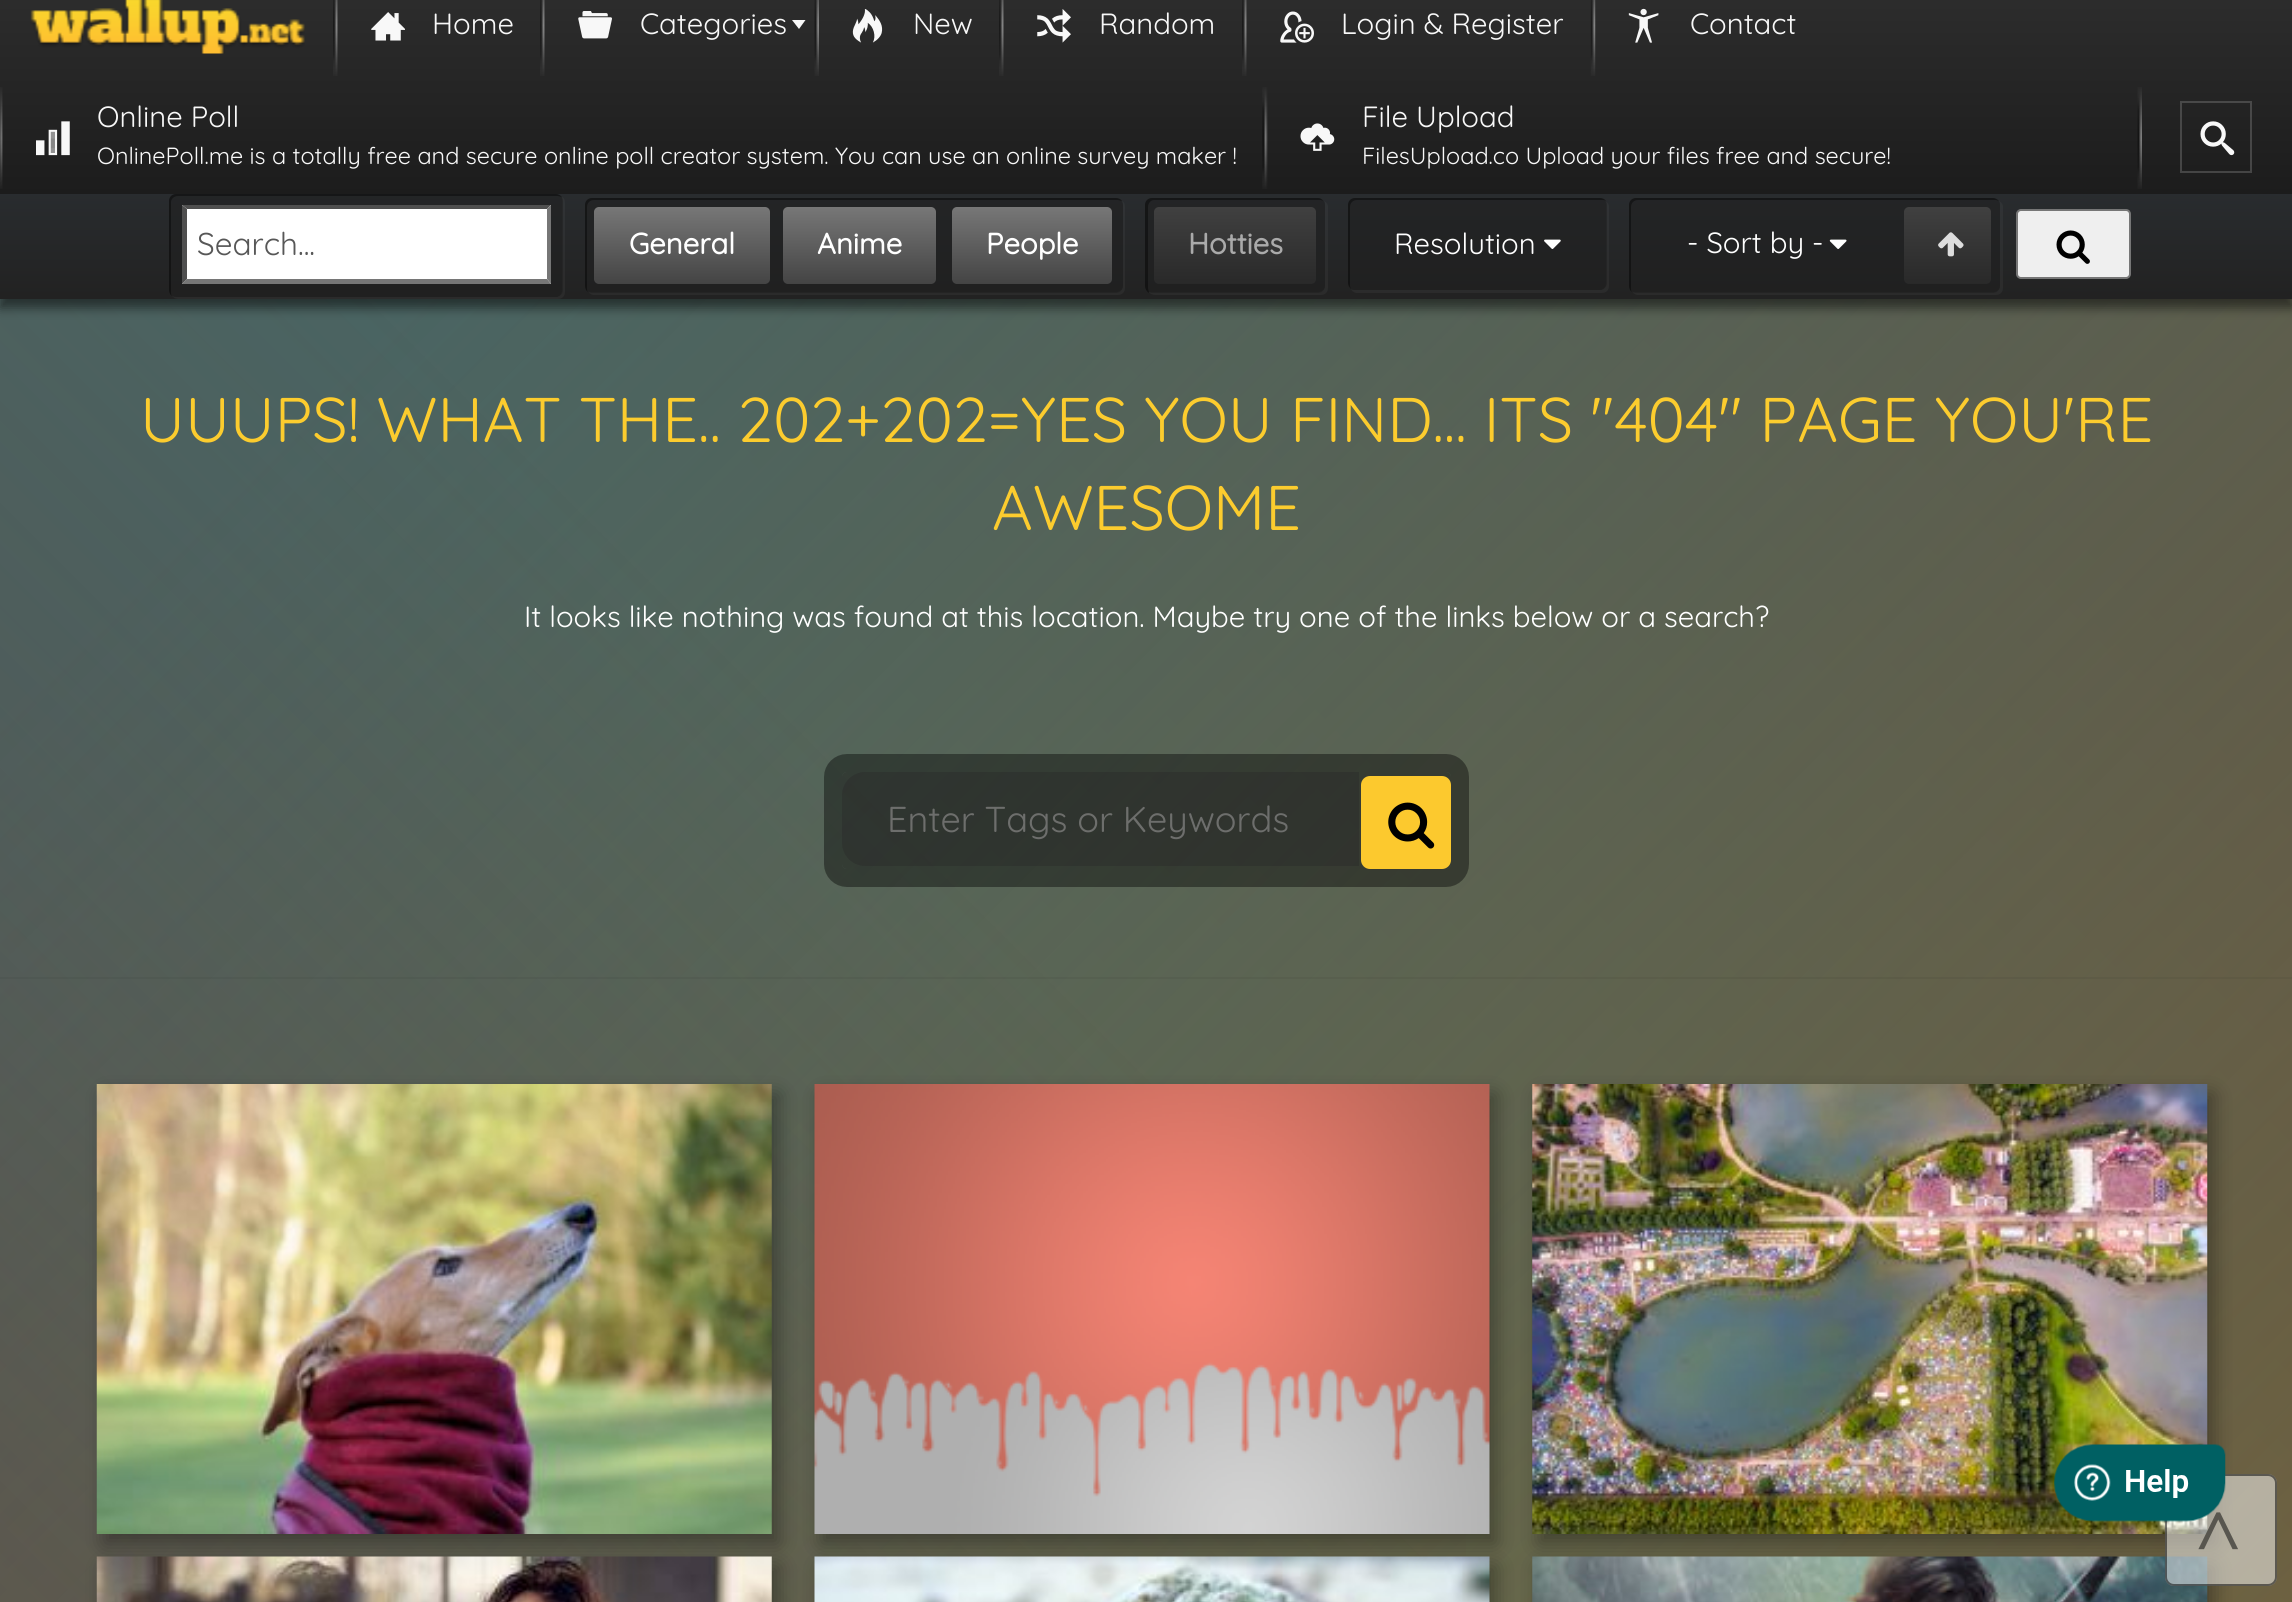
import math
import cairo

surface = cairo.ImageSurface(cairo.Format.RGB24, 2292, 1602)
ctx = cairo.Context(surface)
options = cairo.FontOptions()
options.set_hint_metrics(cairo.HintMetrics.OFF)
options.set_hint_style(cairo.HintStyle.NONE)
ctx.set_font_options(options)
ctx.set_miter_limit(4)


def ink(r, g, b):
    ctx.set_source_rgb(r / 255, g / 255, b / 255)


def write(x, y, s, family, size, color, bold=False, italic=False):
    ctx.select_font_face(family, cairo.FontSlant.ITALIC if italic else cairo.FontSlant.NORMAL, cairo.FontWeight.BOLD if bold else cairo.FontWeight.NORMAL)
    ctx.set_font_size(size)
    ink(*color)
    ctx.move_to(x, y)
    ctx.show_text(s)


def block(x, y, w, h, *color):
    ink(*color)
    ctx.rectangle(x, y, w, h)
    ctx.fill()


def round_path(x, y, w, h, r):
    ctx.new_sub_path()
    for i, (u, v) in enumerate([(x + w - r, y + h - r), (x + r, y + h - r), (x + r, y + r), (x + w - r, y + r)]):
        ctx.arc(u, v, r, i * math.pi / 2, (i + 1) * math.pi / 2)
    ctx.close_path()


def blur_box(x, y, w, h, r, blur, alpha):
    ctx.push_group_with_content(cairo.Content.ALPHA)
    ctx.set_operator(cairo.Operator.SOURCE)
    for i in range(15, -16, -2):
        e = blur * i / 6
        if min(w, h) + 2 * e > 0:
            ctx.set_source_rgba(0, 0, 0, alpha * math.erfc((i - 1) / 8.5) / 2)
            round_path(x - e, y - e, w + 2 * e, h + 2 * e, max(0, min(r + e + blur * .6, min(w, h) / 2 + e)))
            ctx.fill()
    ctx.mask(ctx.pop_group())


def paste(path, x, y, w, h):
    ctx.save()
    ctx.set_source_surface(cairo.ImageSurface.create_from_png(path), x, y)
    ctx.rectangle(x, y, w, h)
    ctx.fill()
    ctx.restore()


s1 = dict(family="Quicksand Light", size=29.25, color=(248, 248, 248))
s2 = dict(family="Quicksand Light", size=23.4, color=(248, 248, 248))
s3 = dict(family="Quicksand Light", size=31.5, color=(87, 87, 87))
s4 = dict(family="Quicksand", size=29.25, color=(255, 255, 255), bold=True)
s5 = dict(family="Quicksand", size=29.25, color=(170, 170, 170), bold=True)
s6 = dict(family="Quicksand Light", size=29.25, color=(255, 255, 255))
s7 = dict(family="Quicksand Light", size=63, color=(252, 204, 46))
s8 = dict(family="Quicksand Light", size=36, color=(109, 110, 108))
s9 = dict(family="Liberation Serif", size=79, color=(88, 86, 79), bold=True)

ink(255, 255, 255)
ctx.paint()
gradient = cairo.LinearGradient(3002, 677, -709, 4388)
gradient.add_color_stop_rgba(0.1, 0.498, 0.329, 0.161, 1)
gradient.add_color_stop_rgba(0.8, 0.592, 0.592, 0.231, 1)
ctx.set_source(gradient)
ctx.rectangle(0, 299, 2292, 1303)
ctx.fill()
gradient = cairo.LinearGradient(-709, 677, 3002, 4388)
gradient.add_color_stop_rgba(0.1, 0.29, 0.392, 0.384, 1)
gradient.add_color_stop_rgba(0.8, 0.29, 0.392, 0.384, 0)
ctx.set_source(gradient)
ctx.rectangle(0, 299, 2292, 1303)
ctx.fill()
gradient = cairo.LinearGradient(-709, 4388, 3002, 677)
gradient.add_color_stop_rgba(0, 0.412, 0.216, 0.208, 1)
gradient.add_color_stop_rgba(0.7, 0.412, 0.216, 0.208, 0)
ctx.set_source(gradient)
ctx.rectangle(0, 299, 1466, 1303)
ctx.fill()
ink(0, 0, 0)
blur_box(0, 205, 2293, 103, 0, 5.5, 0.5)
ctx.rectangle(-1, 192, 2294, 106)
ink(34, 34, 34)
ctx.stroke()
gradient = cairo.LinearGradient(1146, -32, 1146, 194)
gradient.add_color_stop_rgba(0, 0.184, 0.184, 0.184, 1)
gradient.add_color_stop_rgba(1, 0.11, 0.11, 0.11, 1)
ctx.set_source(gradient)
ctx.rectangle(0, 0, 2292, 194)
ctx.fill()
paste("pic1.png", 30, 0, 275, 54)
paste("pic2.png", 333, 0, 5, 76)
paste("pic3.png", 371, 12, 34, 29)
write(432, 34, "Home", **s1)
paste("pic2.png", 540, 0, 5, 76)
paste("pic4.png", 578, 11, 34, 28)
write(640, 34, "Categories", **s1)
ctx.new_path()
ctx.move_to(792, 20)
ctx.line_to(805.5, 20)
ctx.line_to(799, 29)
ctx.close_path()
ctx.fill()
paste("pic5.png", 814, 0, 5, 76)
paste("pic6.png", 852, 9, 31, 34)
write(913, 34, "New", **s1)
paste("pic2.png", 999, 0, 5, 76)
paste("pic7.png", 1037, 9, 34, 34)
write(1099, 34, "Random", **s1)
paste("pic2.png", 1242, 0, 5, 76)
paste("pic8.png", 1280, 11, 34, 32)
write(1341, 34, "Login & Register", **s1)
paste("pic9.png", 1590, 0, 6, 76)
paste("pic10.png", 1628, 8, 31, 35)
write(1690, 34, "Contact", **s1)
paste("pic11.png", 0, 87, 3, 102)
paste("pic12.png", 36, 121, 34, 35)
write(97, 127, "Online Poll", **s1)
write(97, 164, "OnlinePoll.me is a totally free and secure online poll creator system. You can use an online survey maker !", **s2)
paste("pic13.png", 1262, 87, 6, 102)
paste("pic14.png", 1300, 123, 35, 28)
write(1362, 127, "File Upload", **s1)
write(1362, 164, "FilesUpload.co Upload your files free and secure!", **s2)
paste("pic15.png", 2137, 87, 5, 102)
ctx.rectangle(2181, 102, 70, 70)
ctx.set_source_rgba(0.502, 0.502, 0.502, 0.4)
ctx.stroke()
paste("pic16.png", 2200, 121, 35, 35)
gradient = cairo.LinearGradient(1146, 193, 1146, 297)
gradient.add_color_stop_rgba(0, 0.161, 0.173, 0.184, 1)
gradient.add_color_stop_rgba(1, 0.133, 0.133, 0.133, 1)
ctx.set_source(gradient)
ctx.rectangle(0, 194, 2292, 103)
ctx.fill()
ctx.set_source_rgba(0.498, 0.498, 0.498, 0.1)
ctx.new_path()
ctx.move_to(172, 296)
ctx.curve_to(174, 298, 176, 299, 178, 299)
ctx.line_to(558, 299)
ctx.curve_to(562, 299, 565, 296, 565, 292)
ctx.line_to(565, 203)
ctx.curve_to(565, 200, 564, 198, 562, 197)
ctx.line_to(562, 200)
ctx.line_to(562, 290)
ctx.curve_to(562, 294, 559, 297, 556, 297)
ctx.line_to(176, 297)
ctx.close_path()
ctx.fill()
ctx.set_source_rgba(0.118, 0.118, 0.118, 0.5)
round_path(169, 194, 394, 103, 7)
ctx.fill()
ctx.set_source_rgba(0, 0, 0, 0.4)
ctx.new_path()
ctx.move_to(178, 196)
ctx.line_to(558, 196)
ctx.line_to(562, 197)
ctx.curve_to(560, 195, 558, 194, 556, 194)
ctx.line_to(176, 194)
ctx.curve_to(172, 194, 169, 197, 169, 201)
ctx.line_to(169, 290)
ctx.curve_to(169, 292, 170, 295, 172, 296)
ctx.curve_to(171, 295, 171, 293, 171, 292)
ctx.line_to(171, 202)
ctx.curve_to(171, 199, 174, 196, 178, 196)
ctx.close_path()
ctx.fill()
block(182, 205, 369, 79, 255, 255, 255)
ink(79, 79, 79)
ctx.new_path()
ctx.move_to(182, 205)
ctx.line_to(551, 205)
ctx.line_to(547, 209)
ctx.line_to(187, 209)
ctx.close_path()
ctx.fill()
ink(118, 118, 118)
ctx.new_path()
ctx.move_to(551, 205)
ctx.line_to(551, 284)
ctx.line_to(547, 279)
ctx.line_to(547, 209)
ctx.close_path()
ctx.fill()
ctx.new_path()
ctx.move_to(551, 284)
ctx.line_to(182, 284)
ctx.line_to(187, 279)
ctx.line_to(547, 279)
ctx.close_path()
ctx.fill()
ink(79, 79, 79)
ctx.new_path()
ctx.move_to(182, 284)
ctx.line_to(182, 205)
ctx.line_to(187, 209)
ctx.line_to(187, 279)
ctx.close_path()
ctx.fill()
write(197, 255, "Search...", **s3)
ctx.set_source_rgba(0.498, 0.498, 0.498, 0.1)
ctx.new_path()
ctx.move_to(588, 291)
ctx.curve_to(589, 293, 591, 295, 594, 295)
ctx.line_to(1118, 295)
ctx.curve_to(1122, 295, 1125, 292, 1125, 288)
ctx.line_to(1125, 207)
ctx.curve_to(1125, 204, 1124, 202, 1122, 201)
ctx.curve_to(1122, 202, 1123, 203, 1123, 205)
ctx.line_to(1123, 286)
ctx.curve_to(1123, 289, 1120, 292, 1116, 292)
ctx.line_to(592, 292)
ctx.curve_to(590, 292, 589, 292, 588, 291)
ctx.close_path()
ctx.fill()
ctx.set_source_rgba(0.118, 0.118, 0.118, 0.5)
round_path(585, 198, 538, 95, 7)
ctx.fill()
ctx.set_source_rgba(0, 0, 0, 0.4)
ctx.new_path()
ctx.move_to(594, 200)
ctx.line_to(1118, 200)
ctx.line_to(1122, 201)
ctx.curve_to(1121, 199, 1118, 198, 1116, 198)
ctx.line_to(592, 198)
ctx.curve_to(588, 198, 585, 201, 585, 205)
ctx.line_to(585, 286)
ctx.curve_to(585, 288, 586, 291, 588, 292)
ctx.curve_to(587, 291, 587, 289, 587, 288)
ctx.line_to(587, 207)
ctx.curve_to(587, 203, 590, 200, 594, 200)
ctx.close_path()
ctx.fill()
gradient = cairo.LinearGradient(682, 207, 682, 284)
gradient.add_color_stop_rgba(0, 0.467, 0.467, 0.467, 1)
gradient.add_color_stop_rgba(1, 0.267, 0.267, 0.267, 1)
ctx.set_source(gradient)
round_path(594, 207, 176, 77, 5)
ctx.fill()
write(629, 254, "General", **s4)
gradient = cairo.LinearGradient(860, 207, 860, 284)
gradient.add_color_stop_rgba(0, 0.467, 0.467, 0.467, 1)
gradient.add_color_stop_rgba(1, 0.267, 0.267, 0.267, 1)
ctx.set_source(gradient)
round_path(783, 207, 153, 77, 5)
ctx.fill()
write(817, 254, "Anime", **s4)
gradient = cairo.LinearGradient(1032, 207, 1032, 284)
gradient.add_color_stop_rgba(0, 0.467, 0.467, 0.467, 1)
gradient.add_color_stop_rgba(1, 0.267, 0.267, 0.267, 1)
ctx.set_source(gradient)
round_path(952, 207, 160, 77, 5)
ctx.fill()
write(986, 254, "People", **s4)
ctx.set_source_rgba(0.498, 0.498, 0.498, 0.1)
ctx.new_path()
ctx.move_to(1149, 292)
ctx.curve_to(1150, 294, 1153, 295, 1155, 295)
ctx.line_to(1321, 295)
ctx.curve_to(1325, 295, 1328, 292, 1328, 288)
ctx.line_to(1328, 207)
ctx.curve_to(1328, 204, 1326, 202, 1324, 201)
ctx.curve_to(1325, 202, 1325, 203, 1325, 205)
ctx.line_to(1325, 286)
ctx.curve_to(1325, 289, 1322, 292, 1318, 292)
ctx.line_to(1152, 292)
ctx.close_path()
ctx.fill()
ctx.set_source_rgba(0.118, 0.118, 0.118, 0.5)
round_path(1145, 198, 180, 95, 7)
ctx.fill()
ctx.set_source_rgba(0, 0, 0, 0.4)
ctx.new_path()
ctx.move_to(1154, 200)
ctx.line_to(1321, 200)
ctx.line_to(1323, 201)
ctx.curve_to(1322, 199, 1320, 198, 1318, 198)
ctx.line_to(1152, 198)
ctx.curve_to(1148, 198, 1145, 201, 1145, 205)
ctx.line_to(1145, 286)
ctx.curve_to(1145, 289, 1147, 292, 1149, 293)
ctx.curve_to(1149, 291, 1148, 290, 1148, 288)
ctx.line_to(1148, 207)
ctx.curve_to(1148, 203, 1151, 200, 1154, 200)
ctx.close_path()
ctx.fill()
gradient = cairo.LinearGradient(1235, 207, 1235, 284)
gradient.add_color_stop_rgba(0, 0.251, 0.251, 0.251, 1)
gradient.add_color_stop_rgba(1, 0.161, 0.161, 0.161, 1)
ctx.set_source(gradient)
round_path(1154, 207, 162, 77, 5)
ctx.fill()
write(1188, 254, "Hotties", **s5)
ctx.set_source_rgba(0.498, 0.498, 0.498, 0.1)
ctx.new_path()
ctx.move_to(1351, 289)
ctx.curve_to(1352, 291, 1354, 293, 1357, 293)
ctx.line_to(1602, 293)
ctx.curve_to(1606, 293, 1609, 290, 1609, 286)
ctx.line_to(1609, 207)
ctx.curve_to(1609, 204, 1607, 202, 1605, 201)
ctx.curve_to(1606, 202, 1606, 203, 1606, 205)
ctx.line_to(1606, 284)
ctx.curve_to(1606, 287, 1603, 290, 1600, 290)
ctx.line_to(1354, 290)
ctx.curve_to(1353, 290, 1352, 290, 1351, 289)
ctx.close_path()
ctx.fill()
ctx.set_source_rgba(0.118, 0.118, 0.118, 0.5)
round_path(1348, 198, 259, 92, 7)
ctx.fill()
ctx.set_source_rgba(0, 0, 0, 0.4)
ctx.new_path()
ctx.move_to(1357, 200)
ctx.line_to(1602, 200)
ctx.curve_to(1603, 200, 1605, 200, 1606, 201)
ctx.curve_to(1605, 199, 1602, 198, 1600, 198)
ctx.line_to(1355, 198)
ctx.curve_to(1351, 198, 1348, 201, 1348, 205)
ctx.line_to(1348, 283)
ctx.curve_to(1348, 285, 1349, 287, 1351, 289)
ctx.line_to(1350, 286)
ctx.line_to(1350, 207)
ctx.curve_to(1350, 203, 1353, 200, 1357, 200)
ctx.close_path()
ctx.fill()
write(1394, 254, "Resolution", **s6)
paste("pic17.png", 1544, 239, 17, 10)
ctx.set_source_rgba(0.498, 0.498, 0.498, 0.1)
ctx.new_path()
ctx.move_to(1632, 291)
ctx.curve_to(1633, 293, 1635, 295, 1638, 295)
ctx.line_to(1996, 295)
ctx.curve_to(2000, 295, 2003, 292, 2003, 288)
ctx.line_to(2003, 207)
ctx.curve_to(2003, 204, 2001, 202, 1999, 201)
ctx.curve_to(2000, 202, 2000, 203, 2000, 205)
ctx.line_to(2000, 286)
ctx.curve_to(2000, 289, 1997, 292, 1994, 292)
ctx.line_to(1636, 292)
ctx.curve_to(1634, 292, 1633, 292, 1632, 291)
ctx.close_path()
ctx.fill()
ctx.set_source_rgba(0.118, 0.118, 0.118, 0.5)
round_path(1629, 198, 371, 95, 7)
ctx.fill()
ctx.set_source_rgba(0, 0, 0, 0.4)
ctx.new_path()
ctx.move_to(1638, 200)
ctx.line_to(1996, 200)
ctx.line_to(1999, 201)
ctx.curve_to(1997, 199, 1995, 198, 1993, 198)
ctx.line_to(1636, 198)
ctx.curve_to(1632, 198, 1629, 201, 1629, 205)
ctx.line_to(1629, 286)
ctx.curve_to(1629, 288, 1630, 291, 1632, 292)
ctx.curve_to(1631, 291, 1631, 289, 1631, 288)
ctx.line_to(1631, 207)
ctx.curve_to(1631, 203, 1634, 200, 1638, 200)
ctx.close_path()
ctx.fill()
write(1687, 253, "- Sort by -", **s6)
paste("pic18.png", 1829, 239, 18, 10)
gradient = cairo.LinearGradient(1947, 207, 1947, 284)
gradient.add_color_stop_rgba(0, 0.251, 0.251, 0.251, 1)
gradient.add_color_stop_rgba(1, 0.161, 0.161, 0.161, 1)
ctx.set_source(gradient)
round_path(1904, 207, 87, 77, 5)
ctx.fill()
paste("pic19.png", 1938, 232, 26, 25)
ink(239, 239, 239)
round_path(2017, 210, 113, 68, 4)
ctx.fill_preserve()
ink(118, 118, 118)
ctx.stroke()
paste("pic20.png", 2056, 230, 34, 34)
write(140, 442, "UUUPS! WHAT THE.. 202+202=YES YOU FIND... ITS \"404\" PAGE YOU'RE", **s7)
write(992, 530, "AWESOME", **s7)
write(524, 627, "It looks like nothing was found at this location. Maybe try one of the links below or a search?", **s6)
round_path(833, 763, 627, 115, 14)
ctx.set_source_rgba(0, 0, 0, 0.4)
ctx.set_line_width(18)
ctx.stroke()
round_path(842, 772, 609, 97, 5)
ctx.fill()
ctx.set_source_rgba(0.157, 0.157, 0.157, 0.4)
ctx.new_path()
ctx.move_to(865, 772)
ctx.line_to(1359, 772)
ctx.line_to(1359, 866)
ctx.line_to(865, 866)
ctx.curve_to(852.5, 866, 842, 855.5, 842, 843)
ctx.line_to(842, 795)
ctx.curve_to(842, 782.5, 852.5, 772, 865, 772)
ctx.close_path()
ctx.fill()
write(887, 832, "Enter Tags or Keywords", **s8)
ink(252, 201, 46)
round_path(1361, 776, 90, 93, 9)
ctx.fill()
paste("pic21.png", 1388, 802, 47, 47)
ctx.set_source_rgba(0, 0, 0, 0.05)
ctx.rectangle(0, 977, 2292, 2)
ctx.fill()
ink(0, 0, 0)
blur_box(104, 1094, 675, 450, 0, 10, 0.34)
paste("pic22.png", 96, 1084, 676, 450)
blur_box(821, 1094, 675, 450, 0, 10, 0.34)
paste("pic23.png", 814, 1084, 676, 450)
blur_box(1539, 1094, 675, 450, 0, 10, 0.34)
paste("pic24.png", 1532, 1084, 676, 450)
blur_box(104, 1566, 675, 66, 0, 10, 0.34)
paste("pic25.png", 96, 1556, 676, 46)
blur_box(821, 1566, 675, 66, 0, 10, 0.34)
paste("pic26.png", 814, 1556, 676, 46)
blur_box(1539, 1566, 675, 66, 0, 10, 0.34)
paste("pic27.png", 1532, 1556, 676, 46)
ctx.set_source_rgba(1, 1, 1, 0.5)
round_path(2165, 1474, 112, 112, 9)
ctx.fill()
round_path(2166, 1475, 110, 110, 8)
ctx.set_source_rgba(0, 0, 0, 0.5)
ctx.set_line_width(2)
ctx.stroke()
write(2196, 1557, "˄", **s9)
paste("pic28.png", 2054, 1444, 172, 78)
surface.write_to_png("screenshot.png")
